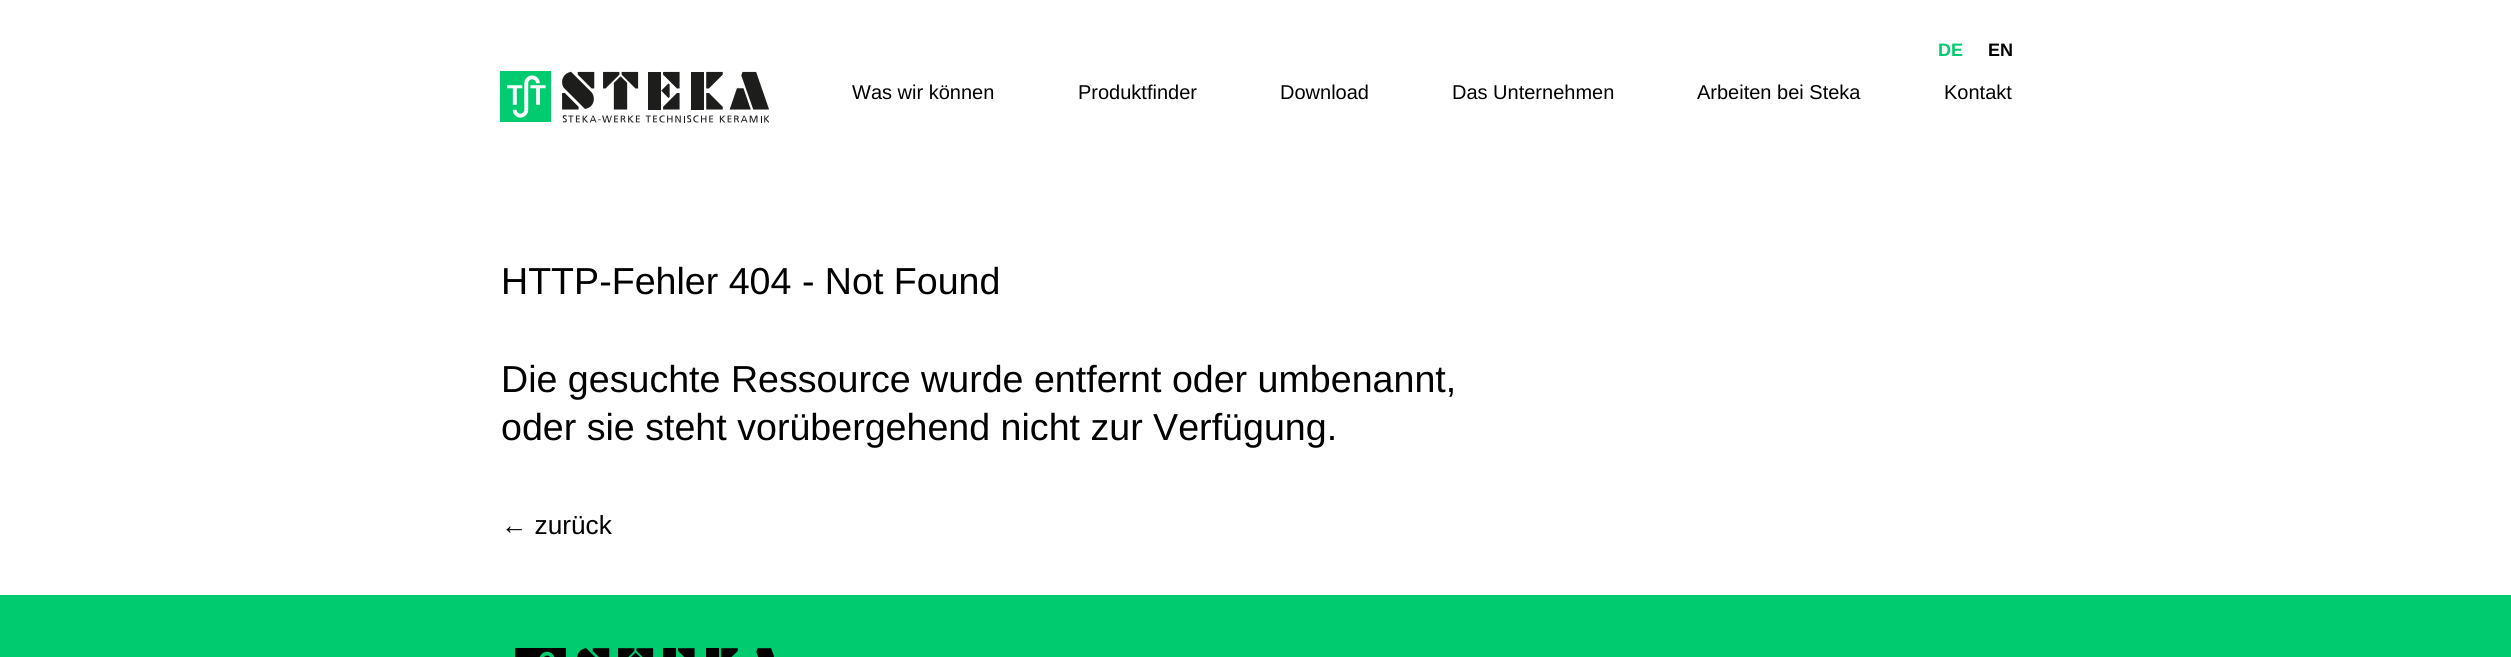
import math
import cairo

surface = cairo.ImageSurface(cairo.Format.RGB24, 2511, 657)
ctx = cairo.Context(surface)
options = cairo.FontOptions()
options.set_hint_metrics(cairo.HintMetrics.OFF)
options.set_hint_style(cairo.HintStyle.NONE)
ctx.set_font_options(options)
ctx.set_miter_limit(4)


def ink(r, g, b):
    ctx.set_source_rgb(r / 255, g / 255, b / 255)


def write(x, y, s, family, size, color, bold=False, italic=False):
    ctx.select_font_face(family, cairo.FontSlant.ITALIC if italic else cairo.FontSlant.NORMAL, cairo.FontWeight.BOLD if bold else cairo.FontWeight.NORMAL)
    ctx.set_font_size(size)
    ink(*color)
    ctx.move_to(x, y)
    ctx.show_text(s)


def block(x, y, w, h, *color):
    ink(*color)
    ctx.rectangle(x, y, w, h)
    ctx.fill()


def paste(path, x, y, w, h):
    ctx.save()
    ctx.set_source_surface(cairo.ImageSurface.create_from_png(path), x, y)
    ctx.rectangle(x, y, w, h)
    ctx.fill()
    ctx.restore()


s1 = dict(family="Liberation Sans", size=18, color=(0, 203, 110), bold=True)
s2 = dict(family="Liberation Sans", size=18, color=(0, 0, 0), bold=True)
s3 = dict(family="Liberation Sans", size=20, color=(0, 0, 0))
s4 = dict(family="Liberation Sans", size=37.6, color=(0, 0, 0))
s5 = dict(family="Liberation Sans", size=26.25, color=(0, 0, 0))

ink(255, 255, 255)
ctx.paint()
write(1938, 56, "DE", **s1)
write(1988, 56, "EN", **s2)
paste("pic1.png", 500, 71, 269, 52)
write(852, 99, "Was wir können", **s3)
write(1078, 99, "Produktfinder", **s3)
write(1280, 99, "Download", **s3)
write(1452, 99, "Das Unternehmen", **s3)
write(1697, 99, "Arbeiten bei Steka", **s3)
write(1944, 99, "Kontakt", **s3)
write(501, 294, "HTTP-Fehler 404 - Not Found", **s4)
write(501, 392, "Die gesuchte Ressource wurde entfernt oder umbenannt,", **s4)
write(501, 440, "oder sie steht vorübergehend nicht zur Verfügung.", **s4)
write(501, 534, "← zurück", **s5)
block(0, 595, 2511, 62, 0, 203, 110)
paste("pic2.png", 515, 648, 260, 9)
surface.write_to_png("screenshot.png")
